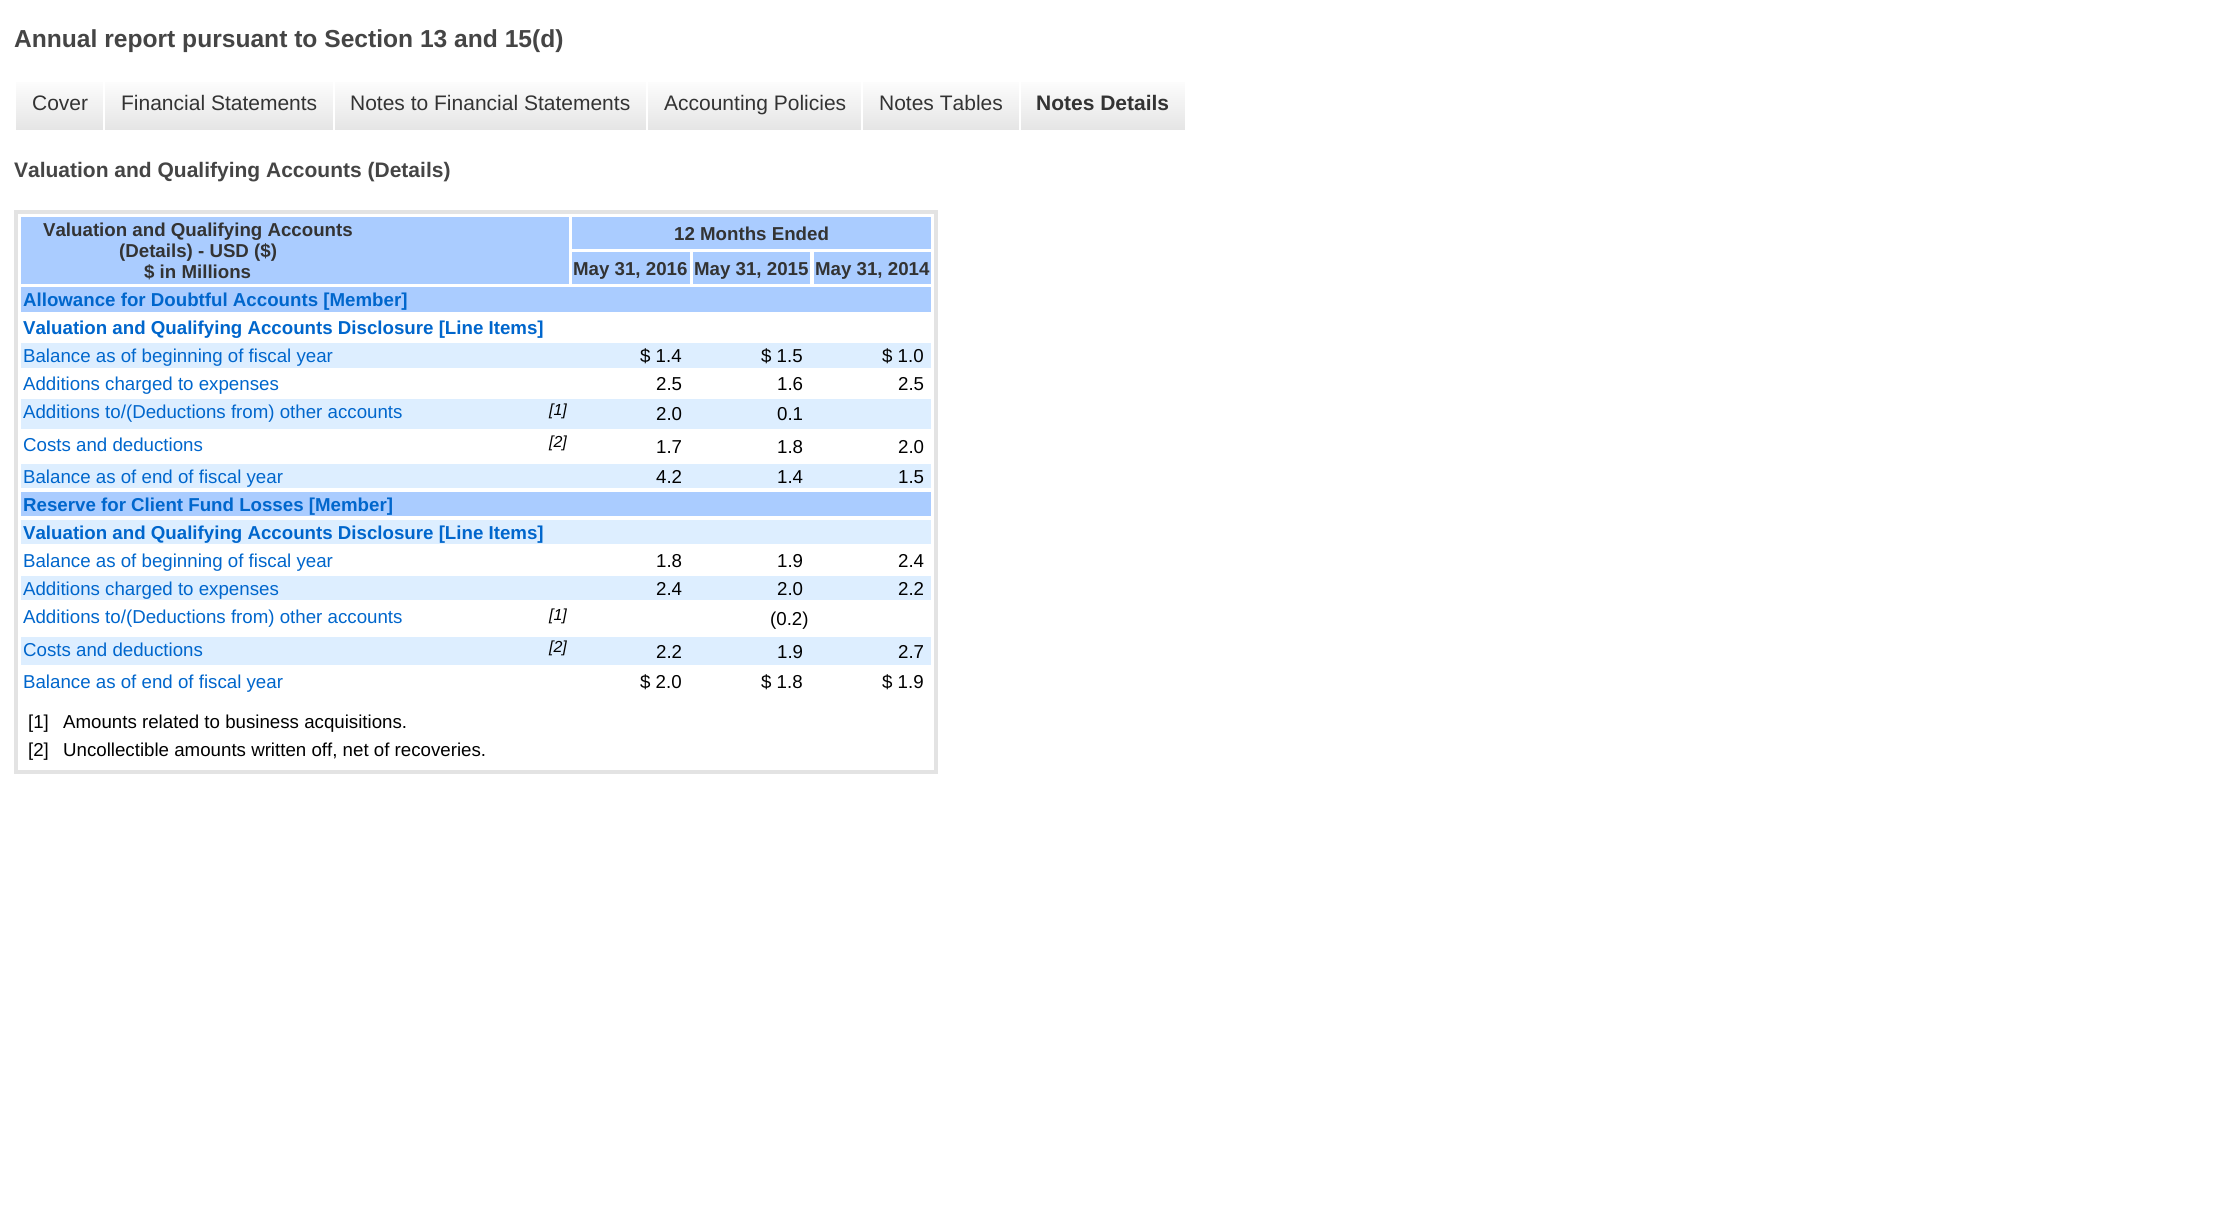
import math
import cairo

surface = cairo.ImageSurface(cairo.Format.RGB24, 2216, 1227)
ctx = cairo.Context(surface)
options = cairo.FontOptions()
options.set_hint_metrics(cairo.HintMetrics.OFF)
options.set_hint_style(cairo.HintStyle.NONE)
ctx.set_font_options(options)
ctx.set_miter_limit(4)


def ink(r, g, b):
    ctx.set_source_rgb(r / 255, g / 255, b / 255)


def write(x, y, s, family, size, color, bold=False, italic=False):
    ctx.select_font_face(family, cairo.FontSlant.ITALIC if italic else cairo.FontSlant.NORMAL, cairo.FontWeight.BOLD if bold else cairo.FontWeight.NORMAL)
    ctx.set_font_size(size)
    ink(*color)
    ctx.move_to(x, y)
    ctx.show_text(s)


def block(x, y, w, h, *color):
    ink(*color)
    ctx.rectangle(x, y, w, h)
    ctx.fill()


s1 = dict(family="Liberation Sans", size=24.6, color=(69, 69, 69), bold=True)
s2 = dict(family="Liberation Sans", size=21, color=(51, 51, 51))
s3 = dict(family="Liberation Sans", size=21, color=(51, 51, 51), bold=True)
s4 = dict(family="Liberation Sans", size=21, color=(69, 69, 69), bold=True)
s5 = dict(family="Liberation Sans", size=18.7, color=(51, 51, 51), bold=True)
s6 = dict(family="Liberation Sans", size=18.7, color=(0, 102, 204), bold=True)
s7 = dict(family="Liberation Sans", size=18.7, color=(0, 102, 204))
s8 = dict(family="Liberation Sans", size=18.7, color=(0, 0, 0))
s9 = dict(family="Liberation Sans", size=16, color=(0, 0, 0), italic=True)

ink(255, 255, 255)
ctx.paint()
write(14, 47, "Annual report pursuant to Section 13 and 15(d)", **s1)
gradient = cairo.LinearGradient(60, 77, 60, 130)
gradient.add_color_stop_rgba(0, 1, 1, 1, 1)
gradient.add_color_stop_rgba(1, 0.898, 0.898, 0.898, 1)
ctx.set_source(gradient)
ctx.rectangle(16, 82, 87, 48)
ctx.fill()
write(32, 110, "Cover", **s2)
gradient = cairo.LinearGradient(219, 77, 219, 130)
gradient.add_color_stop_rgba(0, 1, 1, 1, 1)
gradient.add_color_stop_rgba(1, 0.898, 0.898, 0.898, 1)
ctx.set_source(gradient)
ctx.rectangle(105, 82, 228, 48)
ctx.fill()
write(121, 110, "Financial Statements", **s2)
gradient = cairo.LinearGradient(490, 77, 490, 130)
gradient.add_color_stop_rgba(0, 1, 1, 1, 1)
gradient.add_color_stop_rgba(1, 0.898, 0.898, 0.898, 1)
ctx.set_source(gradient)
ctx.rectangle(335, 82, 311, 48)
ctx.fill()
write(350, 110, "Notes to Financial Statements", **s2)
gradient = cairo.LinearGradient(754, 77, 754, 130)
gradient.add_color_stop_rgba(0, 1, 1, 1, 1)
gradient.add_color_stop_rgba(1, 0.898, 0.898, 0.898, 1)
ctx.set_source(gradient)
ctx.rectangle(648, 82, 213, 48)
ctx.fill()
write(664, 110, "Accounting Policies", **s2)
gradient = cairo.LinearGradient(941, 77, 941, 130)
gradient.add_color_stop_rgba(0, 1, 1, 1, 1)
gradient.add_color_stop_rgba(1, 0.898, 0.898, 0.898, 1)
ctx.set_source(gradient)
ctx.rectangle(863, 82, 156, 48)
ctx.fill()
write(879, 110, "Notes Tables", **s2)
gradient = cairo.LinearGradient(1103, 77, 1103, 130)
gradient.add_color_stop_rgba(0, 1, 1, 1, 1)
gradient.add_color_stop_rgba(1, 0.898, 0.898, 0.898, 1)
ctx.set_source(gradient)
ctx.rectangle(1021, 82, 164, 48)
ctx.fill()
write(1036, 110, "Notes Details", **s3)
write(14, 177, "Valuation and Qualifying Accounts (Details)", **s4)
ctx.rectangle(16, 212, 920, 560)
ink(227, 227, 227)
ctx.set_line_width(4)
ctx.stroke()
block(21, 217, 548, 67, 170, 204, 255)
write(43, 236, "Valuation and Qualifying Accounts", **s5)
write(119, 257, "(Details) - USD ($)", **s5)
write(144, 278, "$ in Millions", **s5)
block(572, 217, 359, 32, 170, 204, 255)
write(674, 240, "12 Months Ended", **s5)
block(572, 252, 118, 32, 170, 204, 255)
write(573, 275, "May 31, 2016", **s5)
block(693, 252, 117, 32, 170, 204, 255)
write(694, 275, "May 31, 2015", **s5)
block(814, 252, 117, 32, 170, 204, 255)
write(815, 275, "May 31, 2014", **s5)
block(21, 287, 910, 25, 170, 204, 255)
write(23, 306, "Allowance for Doubtful Accounts [Member]", **s6)
write(23, 334, "Valuation and Qualifying Accounts Disclosure [Line Items]", **s6)
block(21, 343, 910, 25, 221, 238, 255)
write(23, 362, "Balance as of beginning of fiscal year", **s7)
write(640, 362, "$ 1.4", **s8)
write(761, 362, "$ 1.5", **s8)
write(882, 362, "$ 1.0", **s8)
write(23, 390, "Additions charged to expenses", **s7)
write(656, 390, "2.5", **s8)
write(777, 390, "1.6", **s8)
write(898, 390, "2.5", **s8)
block(21, 399, 910, 30, 221, 238, 255)
write(23, 418, "Additions to/(Deductions from) other accounts", **s7)
write(549, 415, "[1]", **s9)
write(656, 420, "2.0", **s8)
write(777, 420, "0.1", **s8)
write(23, 451, "Costs and deductions", **s7)
write(549, 447, "[2]", **s9)
write(656, 453, "1.7", **s8)
write(777, 453, "1.8", **s8)
write(898, 453, "2.0", **s8)
block(21, 464, 910, 24, 221, 238, 255)
write(23, 483, "Balance as of end of fiscal year", **s7)
write(656, 483, "4.2", **s8)
write(777, 483, "1.4", **s8)
write(898, 483, "1.5", **s8)
block(21, 492, 910, 24, 170, 204, 255)
write(23, 511, "Reserve for Client Fund Losses [Member]", **s6)
block(21, 520, 910, 24, 221, 238, 255)
write(23, 539, "Valuation and Qualifying Accounts Disclosure [Line Items]", **s6)
write(23, 567, "Balance as of beginning of fiscal year", **s7)
write(656, 567, "1.8", **s8)
write(777, 567, "1.9", **s8)
write(898, 567, "2.4", **s8)
block(21, 576, 910, 24, 221, 238, 255)
write(23, 595, "Additions charged to expenses", **s7)
write(656, 595, "2.4", **s8)
write(777, 595, "2.0", **s8)
write(898, 595, "2.2", **s8)
write(23, 623, "Additions to/(Deductions from) other accounts", **s7)
write(549, 620, "[1]", **s9)
write(770, 625, "(0.2)", **s8)
block(21, 637, 910, 28, 221, 238, 255)
write(23, 656, "Costs and deductions", **s7)
write(549, 652, "[2]", **s9)
write(656, 658, "2.2", **s8)
write(777, 658, "1.9", **s8)
write(898, 658, "2.7", **s8)
write(23, 688, "Balance as of end of fiscal year", **s7)
write(640, 688, "$ 2.0", **s8)
write(761, 688, "$ 1.8", **s8)
write(882, 688, "$ 1.9", **s8)
write(28, 728, "[1]", **s8)
write(63, 728, "Amounts related to business acquisitions.", **s8)
write(28, 756, "[2]", **s8)
write(63, 756, "Uncollectible amounts written off, net of recoveries.", **s8)
surface.write_to_png("screenshot.png")
